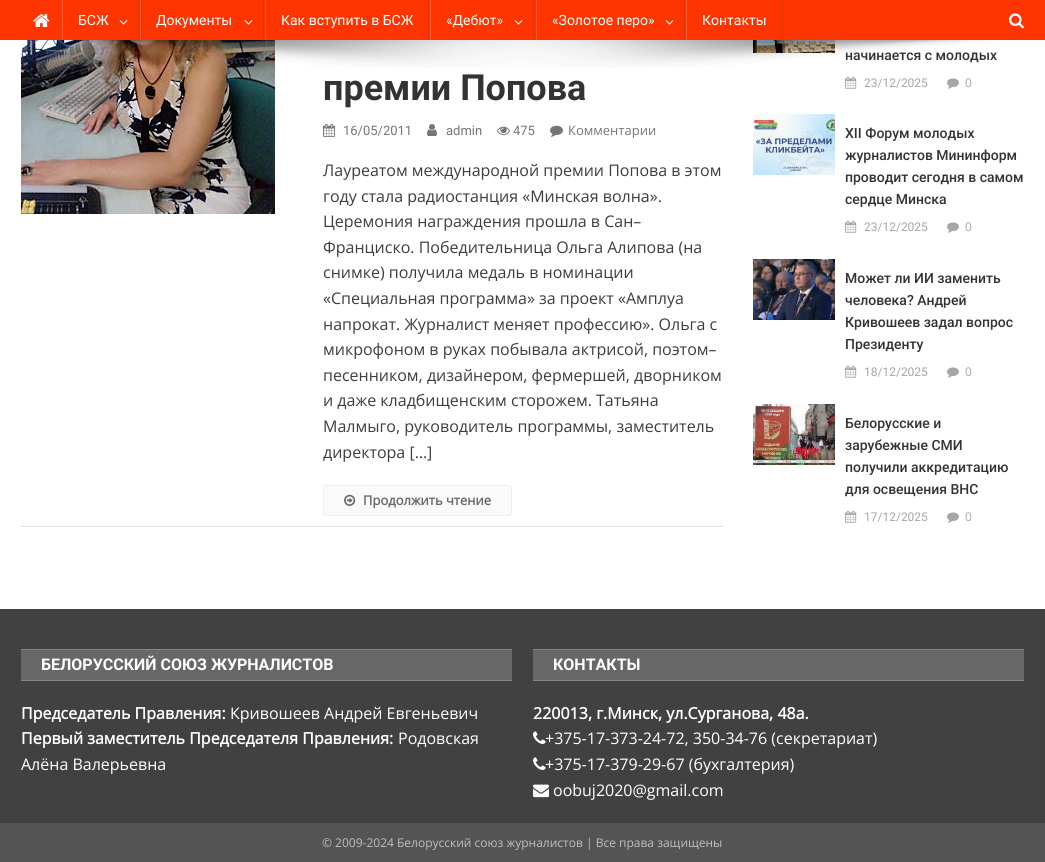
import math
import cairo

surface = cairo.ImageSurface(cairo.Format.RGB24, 1045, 862)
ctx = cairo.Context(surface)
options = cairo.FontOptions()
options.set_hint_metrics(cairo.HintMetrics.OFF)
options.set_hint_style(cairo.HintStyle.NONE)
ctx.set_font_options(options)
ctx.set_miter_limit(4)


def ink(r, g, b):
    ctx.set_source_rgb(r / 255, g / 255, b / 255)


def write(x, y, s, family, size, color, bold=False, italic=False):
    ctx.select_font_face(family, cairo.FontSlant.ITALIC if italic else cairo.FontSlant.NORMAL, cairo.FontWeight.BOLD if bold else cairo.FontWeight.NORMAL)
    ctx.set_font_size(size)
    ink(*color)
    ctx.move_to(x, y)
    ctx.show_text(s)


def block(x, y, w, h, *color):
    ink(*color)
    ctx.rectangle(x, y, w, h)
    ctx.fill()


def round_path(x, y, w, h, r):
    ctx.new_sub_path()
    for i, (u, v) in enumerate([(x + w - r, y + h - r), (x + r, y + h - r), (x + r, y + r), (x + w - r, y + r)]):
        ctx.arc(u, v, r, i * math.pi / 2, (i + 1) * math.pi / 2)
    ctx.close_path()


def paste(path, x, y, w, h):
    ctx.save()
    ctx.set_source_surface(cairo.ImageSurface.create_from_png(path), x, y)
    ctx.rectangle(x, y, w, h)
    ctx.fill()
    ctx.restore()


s1 = dict(family="Roboto", size=14, color=(255, 255, 255))
s2 = dict(family="Roboto Medium", size=14, color=(51, 51, 51))
s3 = dict(family="Roboto", size=36, color=(51, 51, 51), bold=True)
s4 = dict(family="Roboto", size=13, color=(118, 118, 118))
s5 = dict(family="Open Sans", size=13, color=(118, 118, 118))
s6 = dict(family="Open Sans", size=16, color=(61, 61, 61))
s7 = dict(family="Open Sans", size=13, color=(102, 102, 102), bold=True)
s8 = dict(family="Roboto", size=12, color=(166, 166, 166))
s9 = dict(family="Open Sans", size=12, color=(166, 166, 166))
s10 = dict(family="Roboto", size=16, color=(255, 255, 255), bold=True)
s11 = dict(family="Open Sans", size=16, color=(255, 255, 255), bold=True)
s12 = dict(family="Open Sans", size=16, color=(255, 255, 255))
s13 = dict(family="Open Sans", size=12, color=(191, 191, 191))

ink(255, 255, 255)
ctx.paint()
block(0, 0, 1045, 40, 254, 53, 0)
paste("pic1.png", 33, 14, 17, 13)
block(138, 0, 1, 40, 234, 49, 0)
block(62, 0, 1, 40, 254, 93, 51)
write(78, 25, "БСЖ", **s1)
paste("pic2.png", 119, 20, 9, 5)
block(263, 0, 1, 40, 234, 49, 0)
block(140, 0, 1, 40, 254, 93, 51)
write(156, 25, "Документы", **s1)
paste("pic2.png", 244, 20, 9, 5)
block(428, 0, 1, 40, 234, 49, 0)
block(265, 0, 1, 40, 254, 93, 51)
write(281, 25, "Как вступить в БСЖ", **s1)
block(533, 0, 1, 40, 234, 49, 0)
block(430, 0, 1, 40, 254, 93, 51)
write(446, 25, "«Дебют»", **s1)
paste("pic2.png", 514, 20, 9, 5)
block(684, 0, 1, 40, 234, 49, 0)
block(536, 0, 1, 40, 254, 93, 51)
write(552, 25, "«Золотое перо»", **s1)
paste("pic2.png", 665, 20, 9, 5)
block(782, 0, 1, 40, 234, 49, 0)
block(686, 0, 1, 40, 254, 93, 51)
write(702, 25, "Контакты", **s1)
paste("pic3.png", 1009, 13, 15, 16)
paste("pic5.png", 21, 40, 254, 174)
paste("pic11.png", 753, 40, 82, 13)
write(845, 60, "начинается с молодых", **s2)
paste("pic4.png", 64, 40, 921, 28)
write(323, 100, "премии Попова", **s3)
paste("pic6.png", 323, 123, 13, 14)
write(343, 135, "16/05/2011", **s4)
paste("pic7.png", 427, 124, 10, 12)
write(446, 135, "admin", **s4)
paste("pic8.png", 497, 126, 13, 9)
write(513, 135, "475", **s4)
paste("pic9.png", 550, 125, 13, 12)
write(568, 135, "Комментарии", **s5)
write(323, 176, "Лауреатом международной премии Попова в этом", **s6)
write(323, 202, "году стала радиостанция «Минская волна».", **s6)
write(323, 227, "Церемония награждения прошла в Сан–", **s6)
write(323, 253, "Франциско. Победительница Ольга Алипова (на", **s6)
write(323, 278, "снимке) получила медаль в номинации", **s6)
write(323, 304, "«Специальная программа» за проект «Амплуа", **s6)
write(323, 330, "напрокат. Журналист меняет профессию». Ольга с", **s6)
write(323, 355, "микрофоном в руках побывала актрисой, поэтом–", **s6)
write(323, 381, "песенником, дизайнером, фермершей, дворником", **s6)
write(323, 406, "и даже кладбищенским сторожем. Татьяна", **s6)
write(323, 432, "Малмыго, руководитель программы, заместитель", **s6)
write(323, 458, "директора […]", **s6)
ink(250, 250, 250)
round_path(323.5, 485.5, 188, 30, 2.5)
ctx.fill_preserve()
ink(238, 238, 238)
ctx.set_line_width(1)
ctx.stroke()
paste("pic10.png", 344, 494, 12, 12)
write(363, 505, "Продолжить чтение", **s7)
block(21, 526, 702, 1, 225, 225, 225)
paste("pic12.png", 845, 76, 12, 13)
write(864, 87, "23/12/2025", **s8)
paste("pic13.png", 947, 78, 12, 11)
write(965, 87, "0", **s9)
paste("pic14.png", 753, 114, 82, 61)
write(845, 138, "XII Форум молодых", **s2)
write(845, 160, "журналистов Мининформ", **s2)
write(845, 182, "проводит сегодня в самом", **s2)
write(845, 204, "сердце Минска", **s2)
paste("pic12.png", 845, 220, 12, 13)
write(864, 231, "23/12/2025", **s8)
paste("pic13.png", 947, 222, 12, 11)
write(965, 231, "0", **s9)
paste("pic15.png", 753, 259, 82, 61)
write(845, 283, "Может ли ИИ заменить", **s2)
write(845, 305, "человека? Андрей", **s2)
write(845, 327, "Кривошеев задал вопрос", **s2)
write(845, 349, "Президенту", **s2)
paste("pic12.png", 845, 365, 12, 13)
write(864, 376, "18/12/2025", **s8)
paste("pic13.png", 947, 367, 12, 11)
write(965, 376, "0", **s9)
paste("pic16.png", 753, 404, 82, 61)
write(845, 428, "Белорусские и", **s2)
write(845, 450, "зарубежные СМИ", **s2)
write(845, 472, "получили аккредитацию", **s2)
write(845, 494, "для освещения ВНС", **s2)
paste("pic12.png", 845, 510, 12, 13)
write(864, 521, "17/12/2025", **s8)
paste("pic13.png", 947, 512, 12, 11)
write(965, 521, "0", **s9)
block(0, 609, 1045, 214, 65, 65, 65)
block(21, 650, 491, 30, 103, 103, 103)
block(21, 649, 491, 1, 133, 133, 133)
block(21, 680, 491, 1, 133, 133, 133)
write(41, 670, "БЕЛОРУССКИЙ СОЮЗ ЖУРНАЛИСТОВ", **s10)
write(21, 719, "Председатель Правления:", **s11)
write(230, 719, "Кривошеев Андрей Евгеньевич", **s12)
write(21, 744, "Первый заместитель Председателя Правления:", **s11)
write(398, 744, "Родовская", **s12)
write(21, 770, "Алёна Валерьевна", **s12)
block(533, 650, 491, 30, 103, 103, 103)
block(533, 649, 491, 1, 133, 133, 133)
block(533, 680, 491, 1, 133, 133, 133)
write(553, 670, "КОНТАКТЫ", **s10)
write(533, 719, "220013, г.Минск, ул.Сурганова, 48а.", **s11)
paste("pic17.png", 533, 731, 13, 13)
write(545, 744, "+375-17-373-24-72, 350-34-76 (секретариат)", **s12)
paste("pic17.png", 533, 757, 13, 13)
write(545, 770, "+375-17-379-29-67 (бухгалтерия)", **s12)
paste("pic18.png", 533, 784, 16, 14)
write(553, 796, "oobuj2020@gmail.com", **s12)
block(0, 823, 1045, 39, 84, 84, 84)
write(322, 847, "© 2009-2024 Белорусский союз журналистов | Все права защищены", **s13)
surface.write_to_png("screenshot.png")
